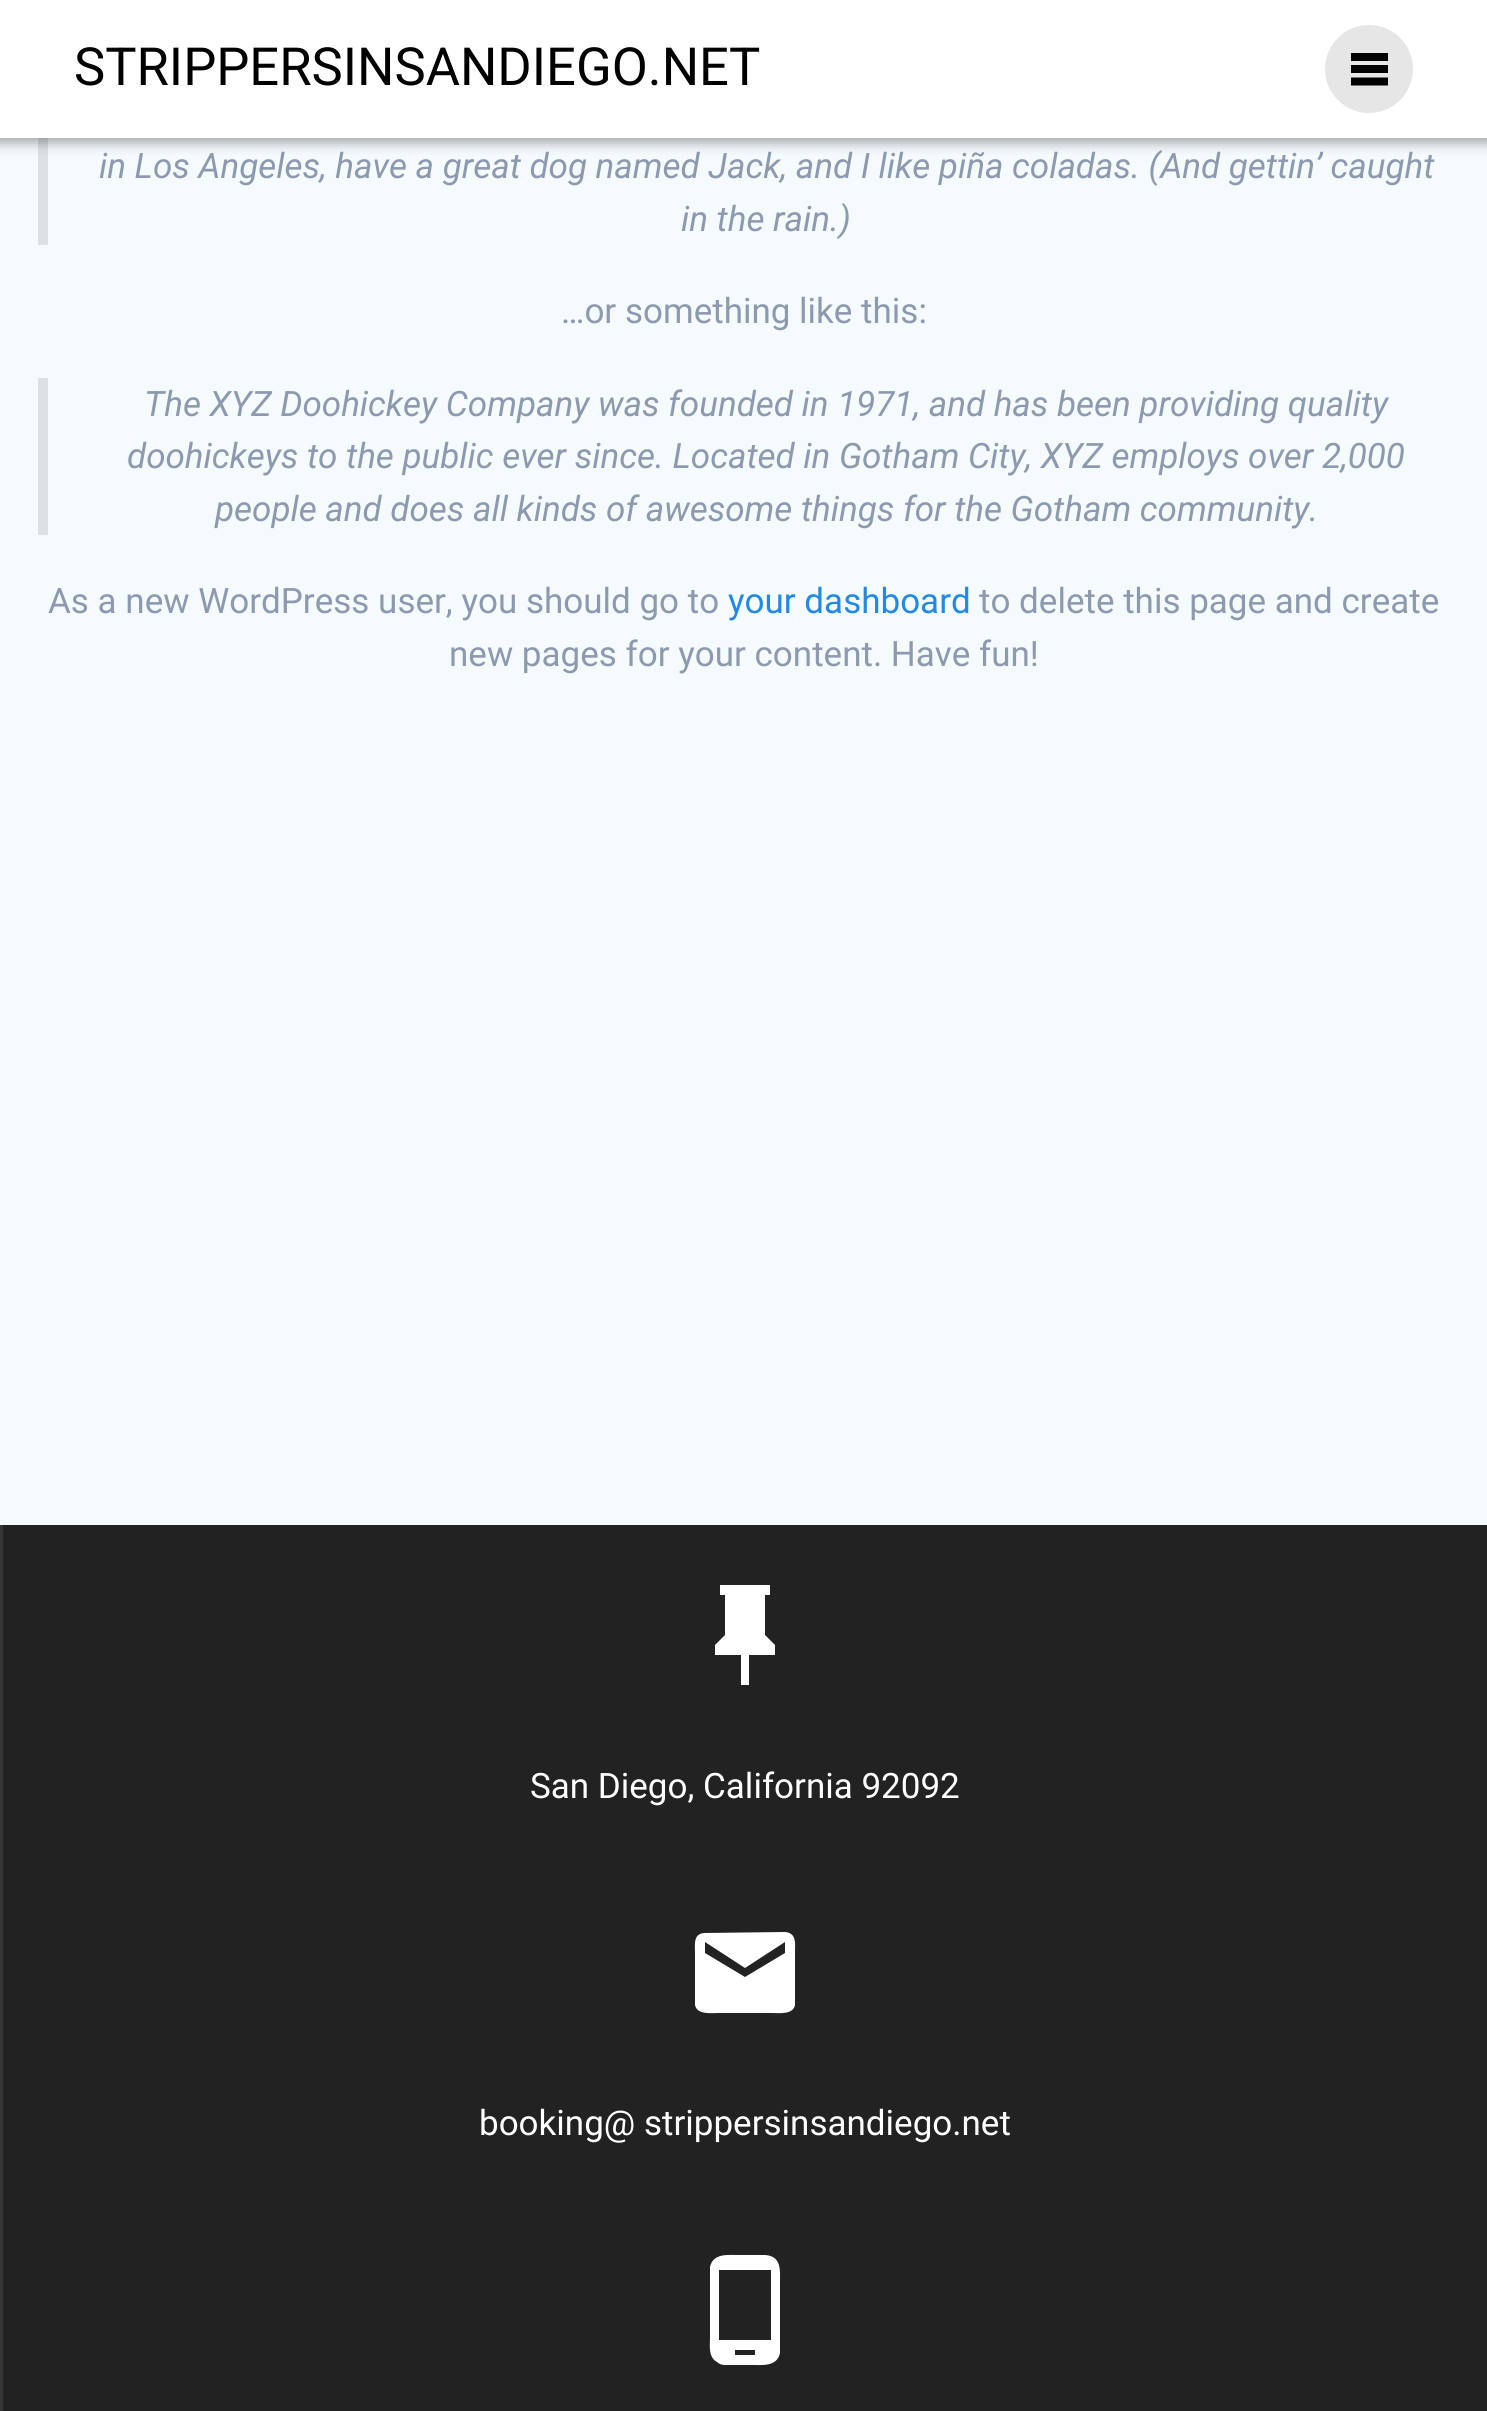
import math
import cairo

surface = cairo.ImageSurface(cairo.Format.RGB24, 1487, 2411)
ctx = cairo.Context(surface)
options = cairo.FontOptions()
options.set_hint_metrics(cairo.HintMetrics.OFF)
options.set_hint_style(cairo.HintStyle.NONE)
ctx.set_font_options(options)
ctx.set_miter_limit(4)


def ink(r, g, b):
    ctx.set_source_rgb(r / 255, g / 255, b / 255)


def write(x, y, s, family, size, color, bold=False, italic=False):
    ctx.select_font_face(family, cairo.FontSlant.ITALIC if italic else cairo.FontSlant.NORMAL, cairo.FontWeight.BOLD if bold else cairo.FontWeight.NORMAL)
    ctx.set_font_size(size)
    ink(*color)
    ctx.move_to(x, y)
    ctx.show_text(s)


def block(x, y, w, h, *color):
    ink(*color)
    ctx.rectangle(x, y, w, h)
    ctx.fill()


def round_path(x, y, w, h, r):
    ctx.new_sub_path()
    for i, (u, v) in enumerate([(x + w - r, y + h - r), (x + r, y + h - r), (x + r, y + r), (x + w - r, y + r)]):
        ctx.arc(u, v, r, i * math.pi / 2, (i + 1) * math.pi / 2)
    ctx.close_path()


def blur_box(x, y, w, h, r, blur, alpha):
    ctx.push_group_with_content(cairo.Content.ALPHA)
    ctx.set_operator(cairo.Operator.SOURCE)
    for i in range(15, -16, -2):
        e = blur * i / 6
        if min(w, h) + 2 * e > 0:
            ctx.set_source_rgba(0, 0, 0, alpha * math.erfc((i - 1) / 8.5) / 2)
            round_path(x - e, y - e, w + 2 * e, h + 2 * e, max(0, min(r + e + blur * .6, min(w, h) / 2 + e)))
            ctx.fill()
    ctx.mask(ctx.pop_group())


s1 = dict(family="Roboto", size=52.5, color=(0, 0, 0))
s2 = dict(family="Roboto", size=35, color=(141, 153, 174), italic=True)
s3 = dict(family="Roboto", size=35, color=(141, 153, 174))
s4 = dict(family="Roboto", size=35, color=(34, 138, 230))
s5 = dict(family="Roboto", size=35, color=(255, 255, 255))

ink(34, 34, 34)
ctx.paint()
block(0, 138, 1487, 1387, 245, 250, 253)
block(38, 138, 10, 107, 221, 225, 228)
ink(0, 0, 0)
blur_box(-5, -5, 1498, 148, 0, 6, 0.33)
block(0, 0, 1487, 138, 255, 255, 255)
write(74, 85, "STRIPPERSINSANDIEGO.NET", **s1)
ink(230, 230, 230)
ctx.new_path()
ctx.arc(1369, 69, 44, 0, 2 * math.pi)
ctx.fill()
ink(0, 0, 0)
ctx.new_path()
ctx.move_to(1351, 53)
ctx.line_to(1388, 53)
ctx.line_to(1388, 61)
ctx.line_to(1351, 61)
ctx.close_path()
ctx.move_to(1351, 65)
ctx.line_to(1388, 65)
ctx.line_to(1388, 73)
ctx.line_to(1351, 73)
ctx.close_path()
ctx.move_to(1351, 77.5)
ctx.line_to(1388, 77.5)
ctx.line_to(1388, 85.5)
ctx.line_to(1351, 85.5)
ctx.close_path()
ctx.fill()
write(99, 178, "in Los Angeles, have a great dog named Jack, and I like piña coladas. (And gettin’ caught", **s2)
write(681, 231, "in the rain.)", **s2)
write(561, 323, "…or something like this:", **s3)
block(38, 378, 10, 157, 221, 225, 228)
write(144, 416, "The XYZ Doohickey Company was founded in 1971, and has been providing quality", **s2)
write(127, 468, "doohickeys to the public ever since. Located in Gotham City, XYZ employs over 2,000", **s2)
write(215, 521, "people and does all kinds of awesome things for the Gotham community.", **s2)
write(48, 613, "As a new WordPress user, you should go to", **s3)
write(728, 613, "your dashboard", **s4)
write(979, 613, "to delete this page and create", **s3)
write(449, 666, "new pages for your content. Have fun!", **s3)
block(0, 1525, 3, 886, 53, 53, 53)
ink(255, 255, 255)
ctx.new_path()
ctx.move_to(765, 1635)
ctx.line_to(765, 1595)
ctx.line_to(770, 1595)
ctx.line_to(770, 1585)
ctx.line_to(720, 1585)
ctx.line_to(720, 1595)
ctx.line_to(725, 1595)
ctx.line_to(725, 1635)
ctx.line_to(715, 1645)
ctx.line_to(715, 1655)
ctx.line_to(741, 1655)
ctx.line_to(741, 1685)
ctx.line_to(749, 1685)
ctx.line_to(749, 1655)
ctx.line_to(775, 1655)
ctx.line_to(775, 1645)
ctx.close_path()
ctx.fill()
write(530, 1798, "San Diego, California 92092", **s5)
ctx.new_path()
ctx.move_to(785, 1953)
ctx.line_to(745, 1977)
ctx.line_to(705, 1953)
ctx.line_to(705, 1942)
ctx.line_to(745, 1968)
ctx.line_to(785, 1942)
ctx.close_path()
ctx.move_to(785, 1932)
ctx.line_to(704, 1933)
ctx.curve_to(693, 1934, 695, 1945, 695, 1952)
ctx.line_to(695, 2005)
ctx.curve_to(697, 2015, 711, 2013, 718, 2013)
ctx.line_to(772, 2013)
ctx.curve_to(779, 2013, 793, 2015, 795, 2005)
ctx.line_to(795, 1952)
ctx.curve_to(795, 1944, 797, 1933, 785, 1932)
ctx.close_path()
ctx.fill()
write(479, 2135, "booking@ strippersinsandiego.net", **s5)
ctx.new_path()
ctx.move_to(771, 2340)
ctx.line_to(719, 2340)
ctx.line_to(719, 2270)
ctx.line_to(771, 2270)
ctx.close_path()
ctx.move_to(755, 2355)
ctx.line_to(735, 2355)
ctx.line_to(735, 2350)
ctx.line_to(755, 2350)
ctx.close_path()
ctx.move_to(765, 2255)
ctx.line_to(738, 2255)
ctx.curve_to(728, 2255, 713, 2253, 710, 2267)
ctx.line_to(710, 2337)
ctx.curve_to(710, 2346, 708, 2357, 717, 2362)
ctx.curve_to(719, 2364, 722, 2365, 725, 2365)
ctx.line_to(752, 2365)
ctx.curve_to(762, 2365, 777, 2367, 780, 2353)
ctx.line_to(780, 2283)
ctx.curve_to(780, 2271, 782, 2256, 765, 2255)
ctx.close_path()
ctx.fill()
surface.write_to_png("screenshot.png")
